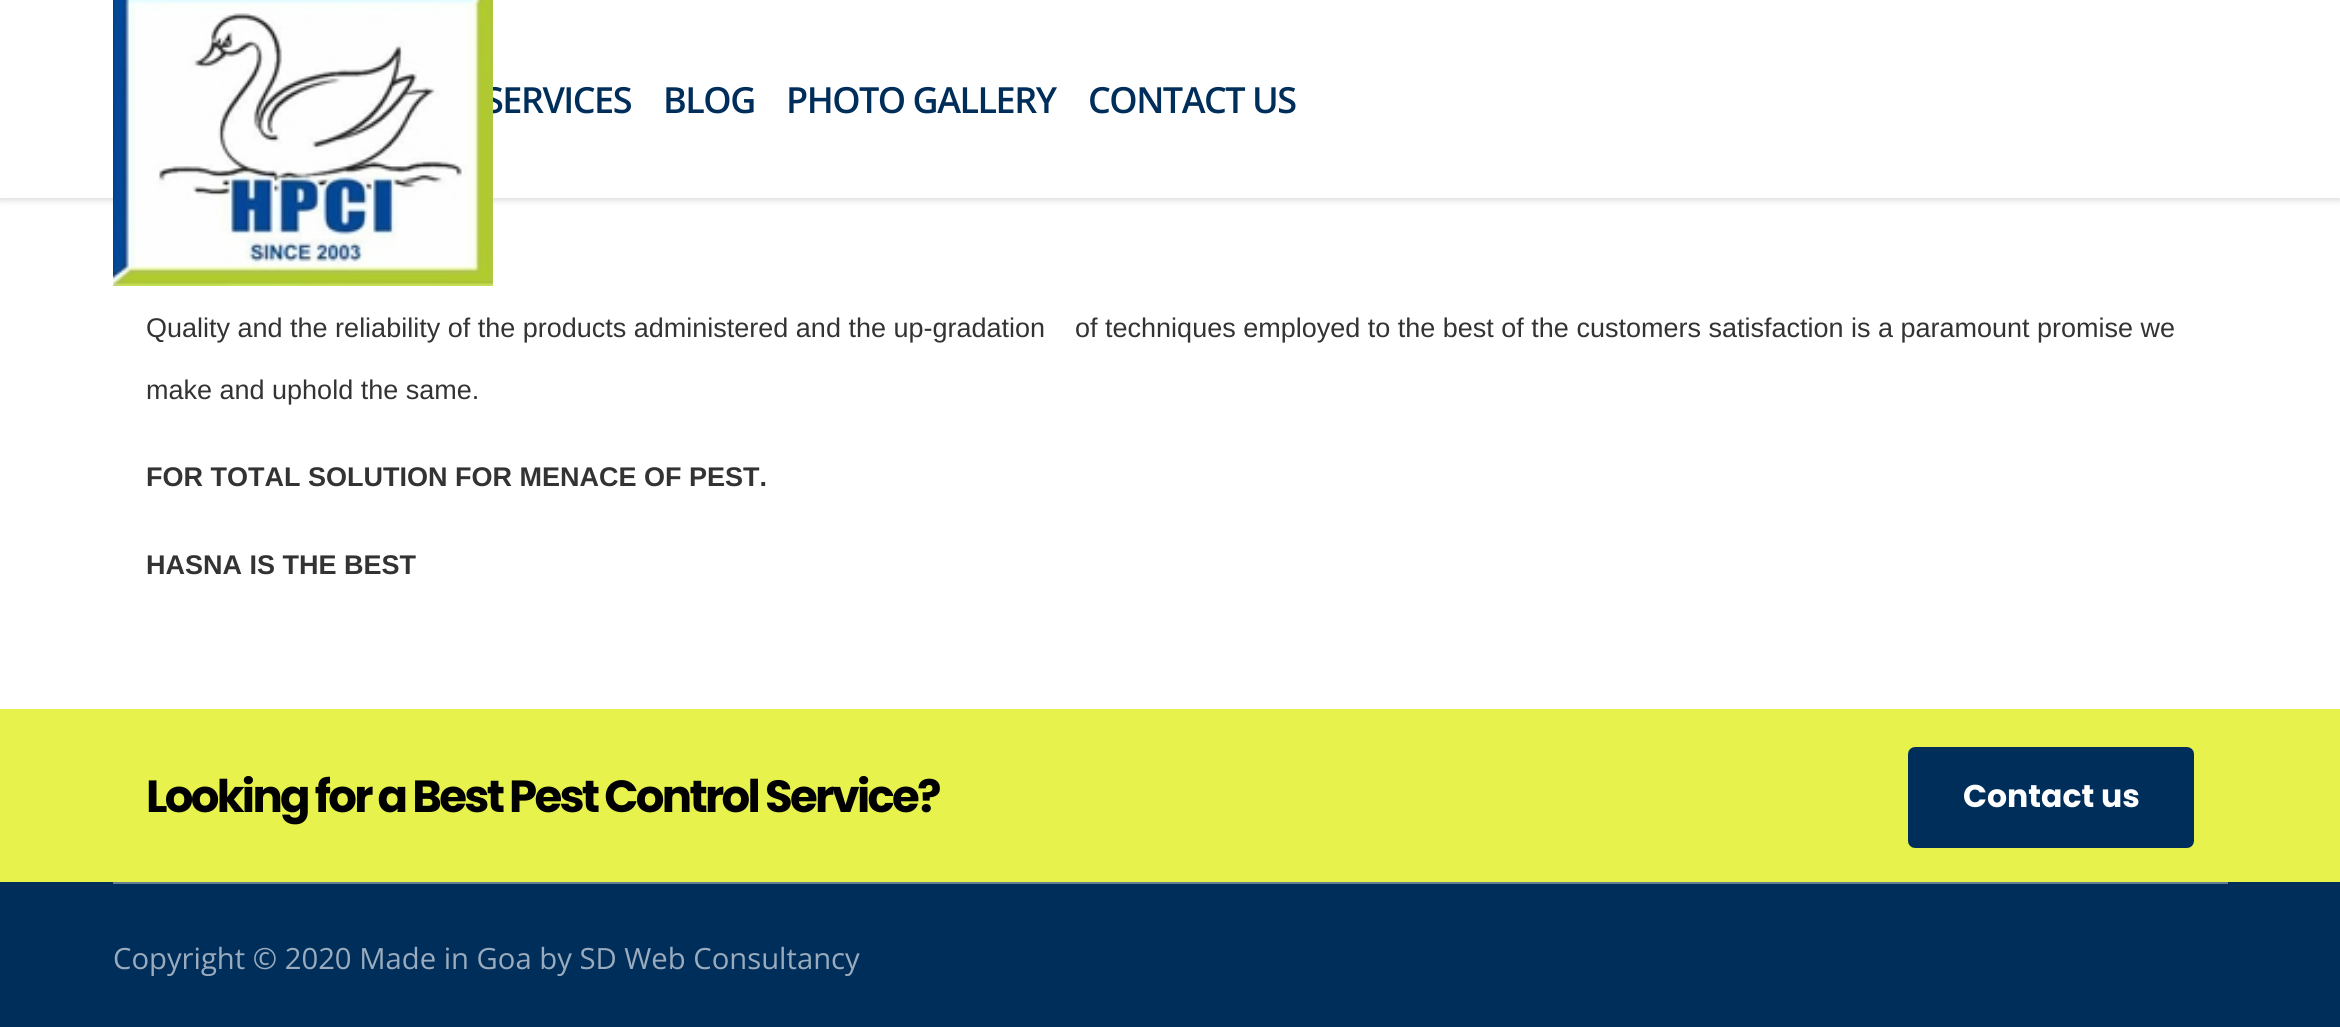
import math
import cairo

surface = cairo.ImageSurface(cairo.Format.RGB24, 2340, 1027)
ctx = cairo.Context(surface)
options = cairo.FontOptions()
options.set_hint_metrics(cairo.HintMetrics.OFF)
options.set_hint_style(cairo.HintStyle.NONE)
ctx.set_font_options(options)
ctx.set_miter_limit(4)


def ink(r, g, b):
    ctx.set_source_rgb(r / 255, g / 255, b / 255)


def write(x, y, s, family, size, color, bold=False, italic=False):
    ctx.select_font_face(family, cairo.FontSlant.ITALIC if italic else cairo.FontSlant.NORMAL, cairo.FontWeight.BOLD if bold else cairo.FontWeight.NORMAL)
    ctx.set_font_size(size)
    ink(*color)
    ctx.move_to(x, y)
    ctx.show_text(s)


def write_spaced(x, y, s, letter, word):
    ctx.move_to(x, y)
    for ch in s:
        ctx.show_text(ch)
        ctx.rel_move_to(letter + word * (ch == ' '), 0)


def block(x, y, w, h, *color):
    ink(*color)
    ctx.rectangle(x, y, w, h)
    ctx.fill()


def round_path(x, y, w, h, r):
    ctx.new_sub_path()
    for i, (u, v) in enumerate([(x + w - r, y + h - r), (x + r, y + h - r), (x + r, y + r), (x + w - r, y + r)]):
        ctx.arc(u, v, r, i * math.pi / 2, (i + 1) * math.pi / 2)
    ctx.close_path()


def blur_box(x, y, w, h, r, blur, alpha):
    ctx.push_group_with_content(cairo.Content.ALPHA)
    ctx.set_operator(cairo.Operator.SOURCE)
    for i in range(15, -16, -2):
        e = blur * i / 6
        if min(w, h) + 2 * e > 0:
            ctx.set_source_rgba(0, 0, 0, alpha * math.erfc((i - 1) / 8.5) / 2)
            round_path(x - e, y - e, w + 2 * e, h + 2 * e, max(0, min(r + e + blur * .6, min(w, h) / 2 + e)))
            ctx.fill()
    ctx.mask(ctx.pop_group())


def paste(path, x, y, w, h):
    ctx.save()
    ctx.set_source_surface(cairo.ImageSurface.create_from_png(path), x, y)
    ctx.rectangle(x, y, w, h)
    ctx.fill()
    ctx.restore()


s1 = dict(family="Liberation Sans", size=27, color=(51, 51, 51))
s2 = dict(family="Liberation Sans", size=27, color=(51, 51, 51), bold=True)
s3 = dict(family="Poppins", size=31.5, color=(255, 255, 255), bold=True)
s4 = dict(family="Open Sans", size=29.25, color=(153, 171, 189))

ink(255, 255, 255)
ctx.paint()
ink(0, 0, 0)
blur_box(0, 2, 2340, 198, 0, 3.5, 0.15)
block(0, 0, 2340, 198, 255, 255, 255)
ctx.select_font_face("Open Sans SemiBold")
ctx.set_font_size(36)
ink(0, 46, 91)
write_spaced(484, 113, "SERVICES", -1.5, 0)
paste("pic1.png", 113, 0, 380, 286)
write_spaced(663, 113, "BLOG", -1.5, 0)
write_spaced(786, 113, "PHOTO GALLERY", -1.5, 0)
write_spaced(1088, 113, "CONTACT US", -1.5, 0)
write(146, 337, "Quality and the reliability of the products administered and the up-gradation    of techniques employed to the best of the customers satisfaction is a paramount promise we", **s1)
write(146, 399, "make and uphold the same.", **s1)
write(146, 486, "FOR TOTAL SOLUTION FOR MENACE OF PEST.", **s2)
write(146, 574, "HASNA IS THE BEST", **s2)
block(0, 709, 2340, 173, 231, 242, 77)
ctx.select_font_face("Poppins", cairo.FontSlant.NORMAL, cairo.FontWeight.BOLD)
ctx.set_font_size(45)
ink(0, 0, 0)
write_spaced(146, 812, "Looking for a Best Pest Control Service?", -2.7, 0)
ink(0, 46, 91)
round_path(1911.5, 750.5, 279, 94, 3.5)
ctx.fill_preserve()
ctx.set_line_width(7)
ctx.stroke()
write(1963, 807, "Contact us", **s3)
block(0, 882, 2340, 145, 0, 46, 91)
block(113, 882, 2115, 2, 102, 125, 148)
write(113, 969, "Copyright © 2020 Made in Goa by SD Web Consultancy", **s4)
surface.write_to_png("screenshot.png")
